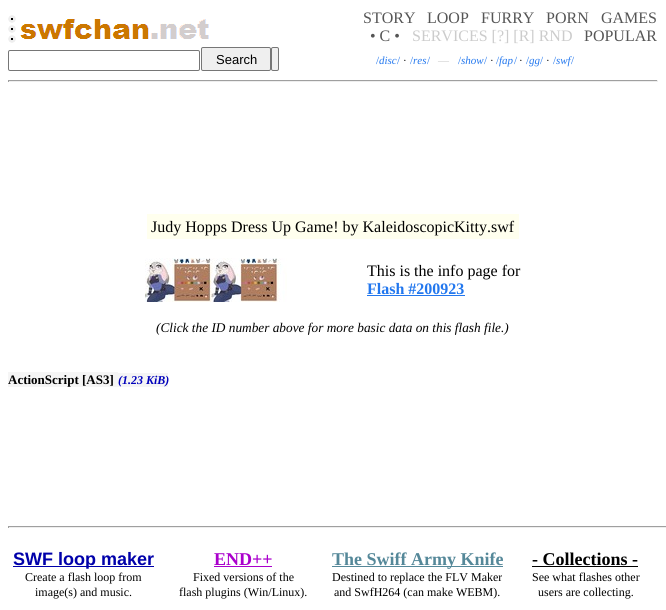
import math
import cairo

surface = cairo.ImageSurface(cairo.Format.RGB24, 666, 610)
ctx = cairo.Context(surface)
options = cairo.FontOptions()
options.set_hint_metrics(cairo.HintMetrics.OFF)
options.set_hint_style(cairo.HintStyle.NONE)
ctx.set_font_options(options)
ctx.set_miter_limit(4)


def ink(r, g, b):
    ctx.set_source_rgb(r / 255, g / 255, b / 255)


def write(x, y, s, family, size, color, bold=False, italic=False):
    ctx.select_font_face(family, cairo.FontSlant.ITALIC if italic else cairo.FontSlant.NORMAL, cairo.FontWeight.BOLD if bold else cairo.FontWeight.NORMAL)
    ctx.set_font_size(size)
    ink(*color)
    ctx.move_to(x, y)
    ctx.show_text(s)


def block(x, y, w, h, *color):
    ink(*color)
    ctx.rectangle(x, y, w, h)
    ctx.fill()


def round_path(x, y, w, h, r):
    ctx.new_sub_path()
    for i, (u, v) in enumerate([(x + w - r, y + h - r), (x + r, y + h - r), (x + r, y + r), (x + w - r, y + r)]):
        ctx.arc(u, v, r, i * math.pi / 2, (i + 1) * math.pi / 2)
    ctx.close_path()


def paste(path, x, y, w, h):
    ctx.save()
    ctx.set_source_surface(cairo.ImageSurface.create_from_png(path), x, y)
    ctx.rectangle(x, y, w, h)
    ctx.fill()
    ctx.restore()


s1 = dict(family="Liberation Serif", size=16, color=(85, 85, 85))
s2 = dict(family="Liberation Serif", size=16, color=(204, 204, 204))
s3 = dict(family="Liberation Sans", size=13, color=(0, 0, 0))
s4 = dict(family="Liberation Serif", size=11, color=(34, 119, 238))
s5 = dict(family="Liberation Serif", size=11, color=(34, 119, 238), italic=True)
s6 = dict(family="Liberation Serif", size=11, color=(0, 0, 0))
s7 = dict(family="Liberation Serif", size=11, color=(204, 204, 204))
s8 = dict(family="Liberation Serif", size=16, color=(0, 0, 0))
s9 = dict(family="Liberation Serif", size=16, color=(34, 119, 238), bold=True)
s10 = dict(family="Liberation Serif", size=13.3, color=(0, 0, 0), italic=True)
s11 = dict(family="Liberation Serif", size=13, color=(0, 0, 0), bold=True)
s12 = dict(family="Liberation Serif", size=12, color=(0, 0, 187), bold=True, italic=True)
s13 = dict(family="Liberation Sans", size=18, color=(0, 0, 170), bold=True)
s14 = dict(family="Liberation Serif", size=12, color=(0, 0, 0))
s15 = dict(family="Liberation Serif", size=18, color=(170, 0, 204), bold=True)
s16 = dict(family="Liberation Serif", size=18, color=(85, 136, 153), bold=True)
s17 = dict(family="Liberation Serif", size=18, color=(0, 0, 0), bold=True)

ink(255, 255, 255)
ctx.paint()
paste("pic1.png", 8, 15, 8, 8)
paste("pic1.png", 8, 25, 8, 8)
paste("pic1.png", 8, 35, 8, 8)
paste("pic2.png", 20, 19, 129, 20)
paste("pic3.png", 151, 19, 58, 20)
write(363, 23, "STORY", **s1)
write(427, 23, "LOOP", **s1)
write(481, 23, "FURRY", **s1)
write(546, 23, "PORN", **s1)
write(601, 23, "GAMES", **s1)
write(370, 41, "• C •", **s1)
write(412, 41, "SERVICES [?] [R] RND", **s2)
write(584, 41, "POPULAR", **s1)
round_path(8.5, 50.5, 191, 20, 1.5)
ink(118, 118, 118)
ctx.set_line_width(1)
ctx.stroke()
ink(239, 239, 239)
round_path(201.5, 47.5, 69, 23, 1.5)
ctx.fill_preserve()
ink(118, 118, 118)
ctx.stroke()
write(216, 64, "Search", **s3)
ink(239, 239, 239)
round_path(271.5, 47.5, 7, 23, 1.5)
ctx.fill_preserve()
ink(118, 118, 118)
ctx.stroke()
write(376, 64, "/", **s4)
write(379, 64, "disc", **s5)
write(397, 64, "/", **s4)
write(410, 64, "/", **s4)
write(413, 64, "res", **s5)
write(427, 64, "/", **s4)
write(458, 64, "/", **s4)
write(461, 64, "show", **s5)
write(484, 64, "/", **s4)
write(496, 64, "/", **s4)
write(499, 64, "fap", **s5)
write(514, 64, "/", **s4)
write(526, 64, "/", **s4)
write(540, 64, "/", **s4)
write(553, 64, "/", **s4)
write(556, 64, "swf", **s5)
write(403, 64, "·", **s6)
write(490, 64, "·", **s6)
write(519, 64, "·", **s6)
write(529, 64, "gg", **s5)
write(546, 64, "·", **s6)
write(571, 64, "/", **s4)
write(438, 64, "—", **s7)
block(8, 80, 650, 1, 159, 159, 159)
block(657, 80, 1, 2, 238, 238, 238)
block(8, 81, 650, 1, 238, 238, 238)
block(8, 80, 1, 2, 159, 159, 159)
block(147, 214, 372, 25, 255, 255, 238)
write(151, 232, "Judy Hopps Dress Up Game! by KaleidoscopicKitty.swf", **s8)
paste("pic4.png", 145, 258, 142, 44)
write(367, 276, "This is the info page for", **s8)
write(367, 294, "Flash #200923", **s9)
block(367, 295, 98, 1, 34, 119, 238)
write(156, 332, "(Click the ID number above for more basic data on this flash file.)", **s10)
block(8, 372, 110, 15, 245, 245, 245)
write(8, 384, "ActionScript [AS3]", **s11)
block(118, 373, 50, 14, 245, 245, 245)
write(118, 384, "(1.23 KiB)", **s12)
block(8, 526, 658, 1, 159, 159, 159)
block(8, 527, 658, 1, 238, 238, 238)
block(8, 526, 1, 2, 159, 159, 159)
block(13, 566, 141, 1, 0, 0, 170)
write(13, 565, "SWF loop maker", **s13)
write(25, 581, "Create a flash loop from", **s14)
write(35, 596, "image(s) and music.", **s14)
write(214, 565, "END++", **s15)
block(214, 566, 58, 1, 170, 0, 204)
write(193, 581, "Fixed versions of the", **s14)
write(179, 596, "flash plugins (Win/Linux).", **s14)
block(332, 566, 171, 1, 85, 136, 153)
write(332, 565, "The Swiff Army Knife", **s16)
write(332, 581, "Destined to replace the FLV Maker", **s14)
write(334, 596, "and SwfH264 (can make WEBM).", **s14)
write(532, 565, "- Collections -", **s17)
block(532, 566, 106, 1, 0, 0, 0)
write(532, 581, "See what flashes other", **s14)
write(538, 596, "users are collecting.", **s14)
surface.write_to_png("screenshot.png")
